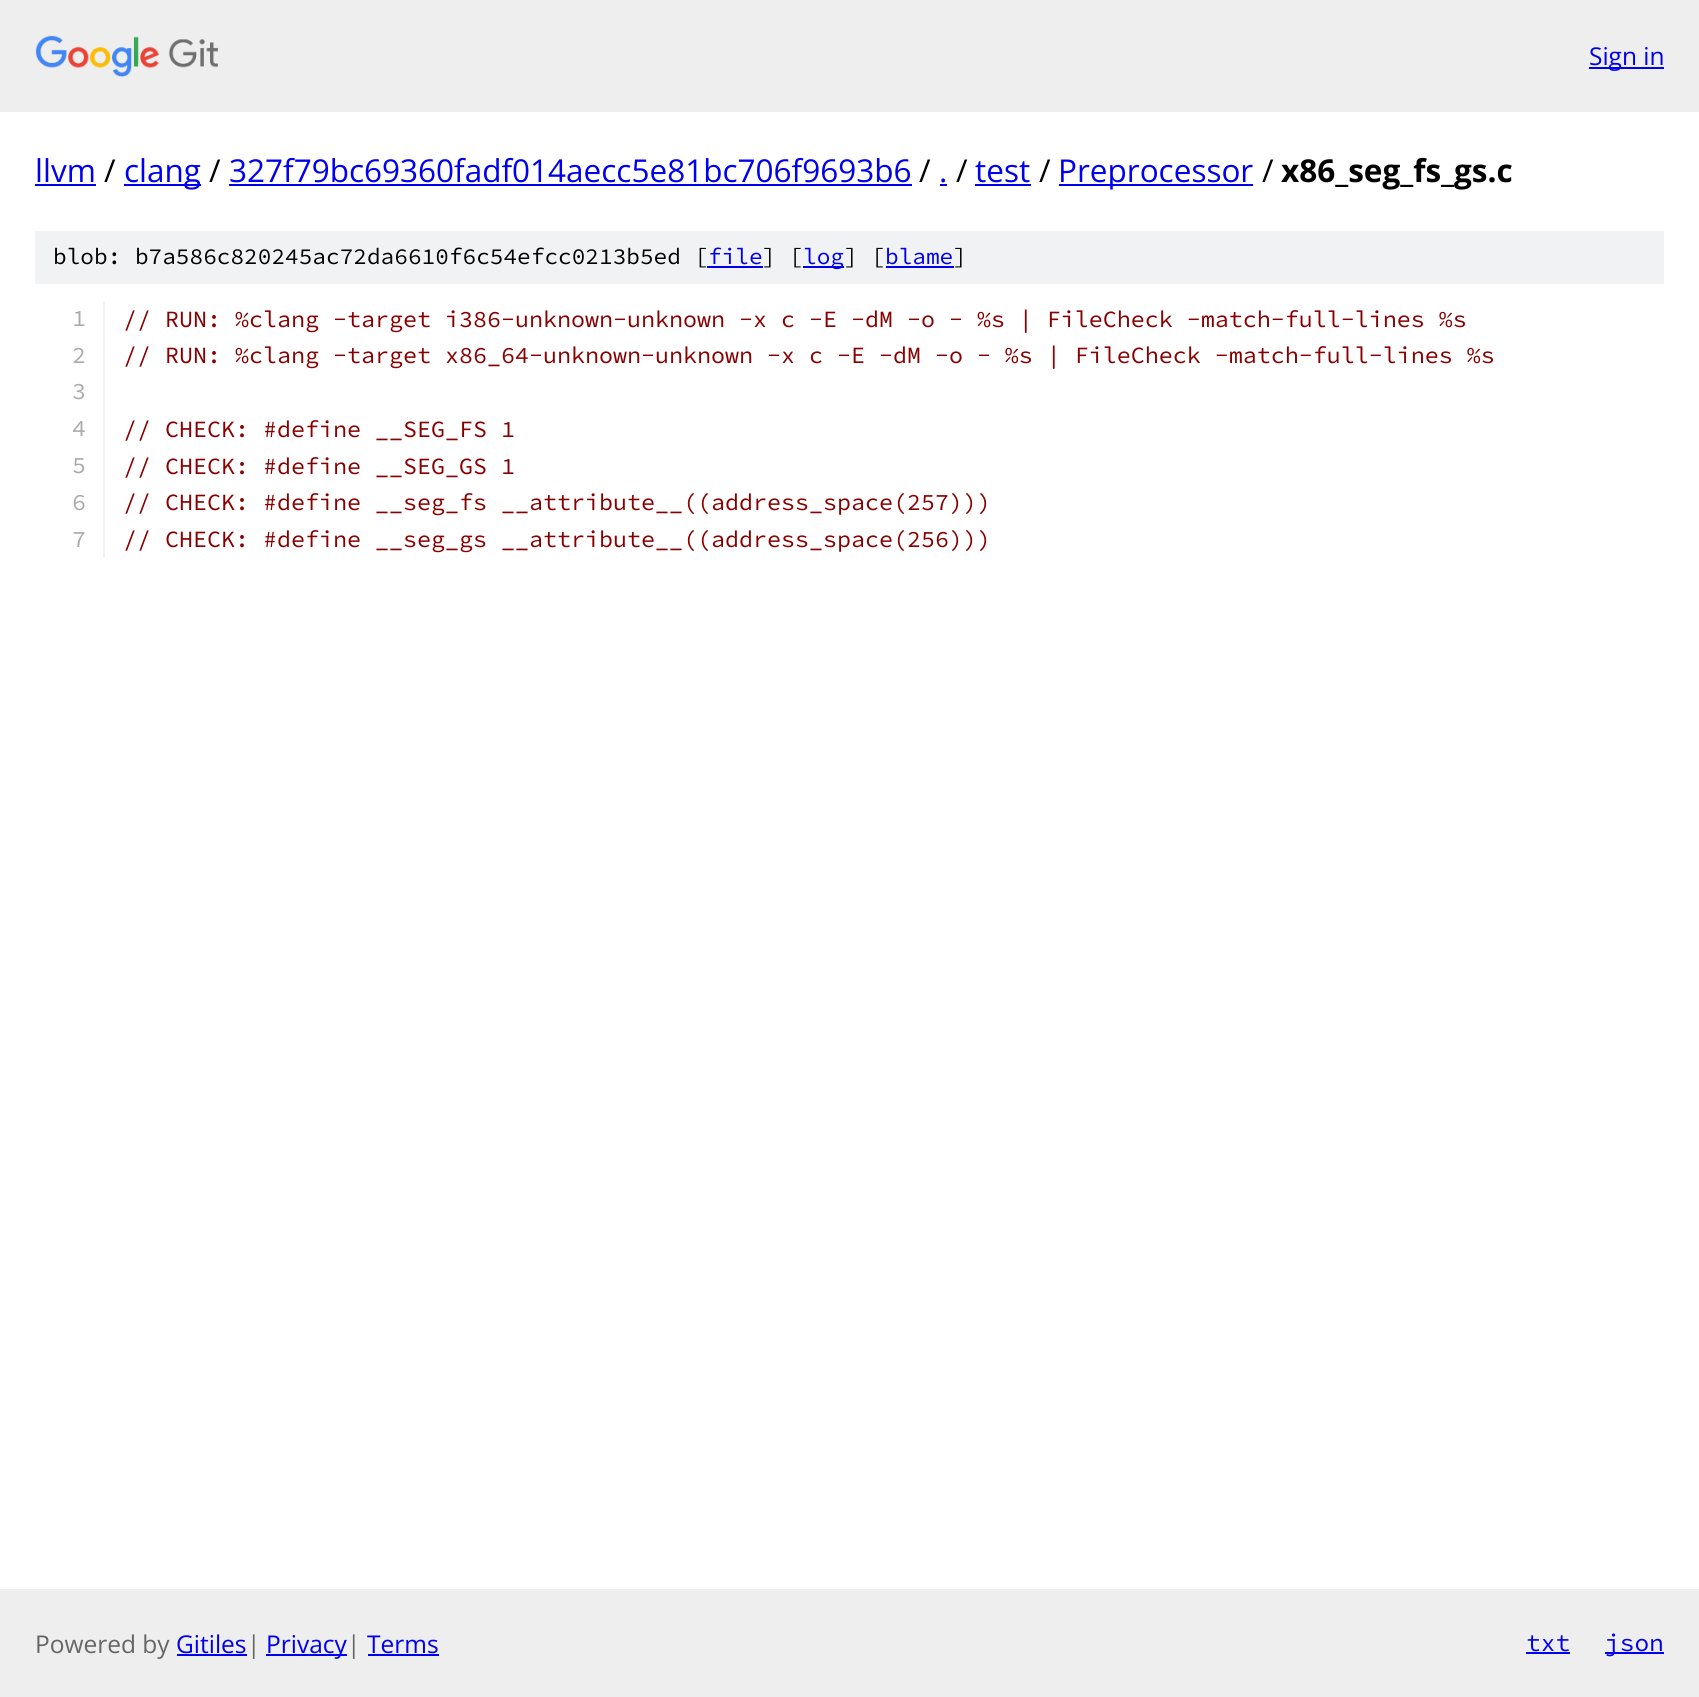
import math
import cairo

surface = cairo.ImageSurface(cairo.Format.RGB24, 1699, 1697)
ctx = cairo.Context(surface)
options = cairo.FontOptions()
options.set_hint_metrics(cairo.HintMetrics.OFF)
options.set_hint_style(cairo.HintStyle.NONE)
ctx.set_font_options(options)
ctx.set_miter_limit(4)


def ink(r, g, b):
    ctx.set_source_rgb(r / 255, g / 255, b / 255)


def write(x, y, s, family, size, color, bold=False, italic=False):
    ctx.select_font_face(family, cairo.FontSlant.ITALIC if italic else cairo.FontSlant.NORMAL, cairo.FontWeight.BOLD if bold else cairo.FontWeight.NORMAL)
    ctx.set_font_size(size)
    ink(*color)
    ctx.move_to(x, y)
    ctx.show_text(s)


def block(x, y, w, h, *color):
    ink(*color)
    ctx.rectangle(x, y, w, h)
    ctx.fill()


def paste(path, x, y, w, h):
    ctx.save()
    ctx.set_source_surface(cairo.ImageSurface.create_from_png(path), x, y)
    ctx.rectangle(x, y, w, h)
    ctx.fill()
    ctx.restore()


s1 = dict(family="Open Sans", size=24.5, color=(0, 0, 238))
s2 = dict(family="Open Sans", size=31.5, color=(0, 0, 238))
s3 = dict(family="Open Sans", size=31.5, color=(0, 0, 0))
s4 = dict(family="Open Sans", size=31.5, color=(0, 0, 0), bold=True)
s5 = dict(family="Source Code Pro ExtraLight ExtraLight", size=22.75, color=(0, 0, 0))
s6 = dict(family="Source Code Pro ExtraLight ExtraLight", size=22.75, color=(0, 0, 238))
s7 = dict(family="Source Code Pro ExtraLight ExtraLight", size=23.33, color=(170, 170, 170))
s8 = dict(family="Source Code Pro ExtraLight ExtraLight", size=23.33, color=(136, 0, 0))
s9 = dict(family="Open Sans", size=24.5, color=(102, 102, 102))
s10 = dict(family="Source Code Pro ExtraLight ExtraLight", size=24.5, color=(0, 0, 238))

ink(255, 255, 255)
ctx.paint()
block(0, 0, 1699, 112, 238, 238, 238)
paste("pic1.png", 35, 35, 183, 42)
block(1589, 67, 75, 2, 0, 0, 238)
write(1589, 65, "Sign in", **s1)
write(35, 182, "llvm", **s2)
block(35, 184, 61, 2, 0, 0, 238)
write(104, 182, "/", **s3)
block(124, 184, 77, 2, 0, 0, 238)
write(124, 182, "clang", **s2)
write(209, 182, "/", **s3)
write(229, 182, "327f79bc69360fadf014aecc5e81bc706f9693b6", **s2)
block(229, 184, 683, 2, 0, 0, 238)
write(919, 182, "/", **s3)
write(939, 182, ".", **s2)
block(940, 184, 7, 2, 0, 0, 238)
write(956, 182, "/", **s3)
write(975, 182, "test", **s2)
block(975, 184, 56, 2, 0, 0, 238)
write(1039, 182, "/", **s3)
block(1059, 184, 194, 2, 0, 0, 238)
write(1058, 182, "Preprocessor", **s2)
write(1262, 182, "/", **s3)
write(1281, 182, "x86_seg_fs_gs.c", **s4)
block(35, 231, 1629, 53, 241, 242, 243)
write(53, 264, "blob: b7a586c820245ac72da6610f6c54efcc0213b5ed [", **s5)
write(708, 264, "file", **s6)
block(707, 266, 56, 2, 0, 0, 238)
write(762, 264, "] [", **s5)
block(803, 266, 41, 2, 0, 0, 238)
write(803, 264, "log", **s6)
write(844, 264, "] [", **s5)
write(885, 264, "blame", **s6)
block(886, 266, 68, 2, 0, 0, 238)
write(953, 264, "]", **s5)
block(103, 301, 2, 257, 241, 242, 243)
write(72, 326, "1", **s7)
write(123, 327, "// RUN: %clang -target i386-unknown-unknown -x c -E -dM -o - %s | FileCheck -match-full-lines %s", **s8)
write(72, 363, "2", **s7)
write(123, 363, "// RUN: %clang -target x86_64-unknown-unknown -x c -E -dM -o - %s | FileCheck -match-full-lines %s", **s8)
write(72, 399, "3", **s7)
write(72, 436, "4", **s7)
write(123, 437, "// CHECK: #define __SEG_FS 1", **s8)
write(72, 473, "5", **s7)
write(123, 474, "// CHECK: #define __SEG_GS 1", **s8)
write(72, 510, "6", **s7)
write(123, 510, "// CHECK: #define __seg_fs __attribute__((address_space(257)))", **s8)
write(72, 547, "7", **s7)
write(123, 547, "// CHECK: #define __seg_gs __attribute__((address_space(256)))", **s8)
block(0, 1589, 1699, 108, 238, 238, 238)
write(35, 1653, "Powered by", **s9)
write(176, 1653, "Gitiles", **s1)
block(177, 1654, 70, 2, 0, 0, 238)
write(247, 1653, "|", **s9)
block(266, 1654, 81, 2, 0, 0, 238)
write(266, 1653, "Privacy", **s1)
write(347, 1653, "|", **s9)
write(367, 1653, "Terms", **s1)
block(368, 1654, 71, 2, 0, 0, 238)
write(1526, 1651, "txt", **s10)
block(1526, 1652, 44, 2, 0, 0, 238)
block(1605, 1652, 59, 2, 0, 0, 238)
write(1605, 1651, "json", **s10)
surface.write_to_png("screenshot.png")
